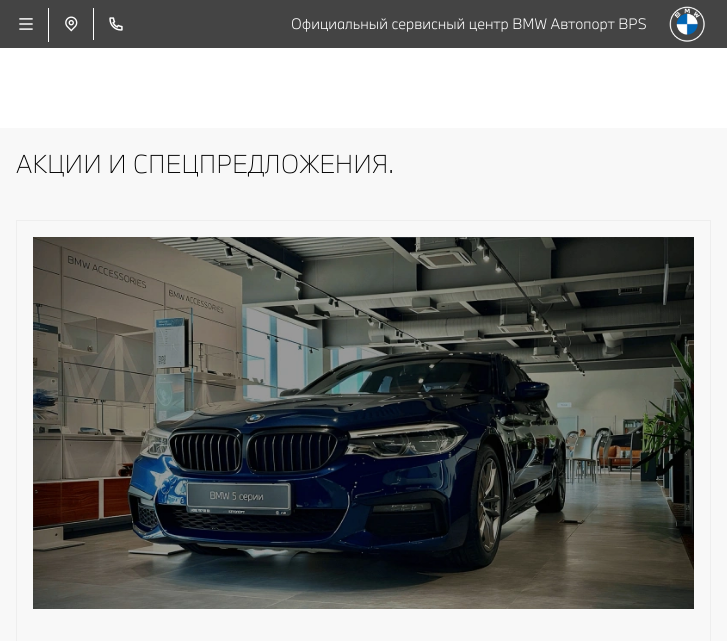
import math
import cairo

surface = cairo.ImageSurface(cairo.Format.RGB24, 727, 641)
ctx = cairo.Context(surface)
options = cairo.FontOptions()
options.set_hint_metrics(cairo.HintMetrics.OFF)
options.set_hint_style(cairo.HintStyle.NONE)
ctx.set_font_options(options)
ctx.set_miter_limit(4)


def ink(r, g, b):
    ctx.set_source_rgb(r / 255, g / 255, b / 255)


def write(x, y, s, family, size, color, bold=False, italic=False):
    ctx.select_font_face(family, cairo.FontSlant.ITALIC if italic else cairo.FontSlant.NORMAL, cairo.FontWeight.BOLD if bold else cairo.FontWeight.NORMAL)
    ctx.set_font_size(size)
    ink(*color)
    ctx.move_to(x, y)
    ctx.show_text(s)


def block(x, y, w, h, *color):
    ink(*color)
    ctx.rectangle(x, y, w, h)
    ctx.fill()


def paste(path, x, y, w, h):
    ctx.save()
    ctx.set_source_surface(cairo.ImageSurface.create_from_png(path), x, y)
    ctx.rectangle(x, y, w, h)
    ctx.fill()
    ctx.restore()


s1 = dict(family="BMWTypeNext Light", size=14, color=(255, 255, 255))
s2 = dict(family="BMWTypeNext Thin", size=24, color=(0, 0, 0))

ink(255, 255, 255)
ctx.paint()
block(0, 0, 727, 48, 68, 68, 68)
block(48, 8, 1, 34, 255, 255, 255)
paste("pic1.png", 19, 18, 14, 12)
block(93, 8, 1, 32, 255, 255, 255)
paste("pic2.png", 65, 16, 13, 16)
paste("pic3.png", 109, 17, 14, 14)
write(291, 29, "Официальный сервисный центр BMW Автопорт BPS", **s1)
paste("pic4.png", 669, 6, 36, 36)
block(0, 128, 727, 513, 248, 248, 248)
write(16, 173, "АКЦИИ И СПЕЦПРЕДЛОЖЕНИЯ.", **s2)
ctx.rectangle(16.5, 220.5, 694, 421)
ink(238, 238, 238)
ctx.set_line_width(1)
ctx.stroke()
paste("pic5.png", 33, 237, 661, 372)
surface.write_to_png("screenshot.png")
